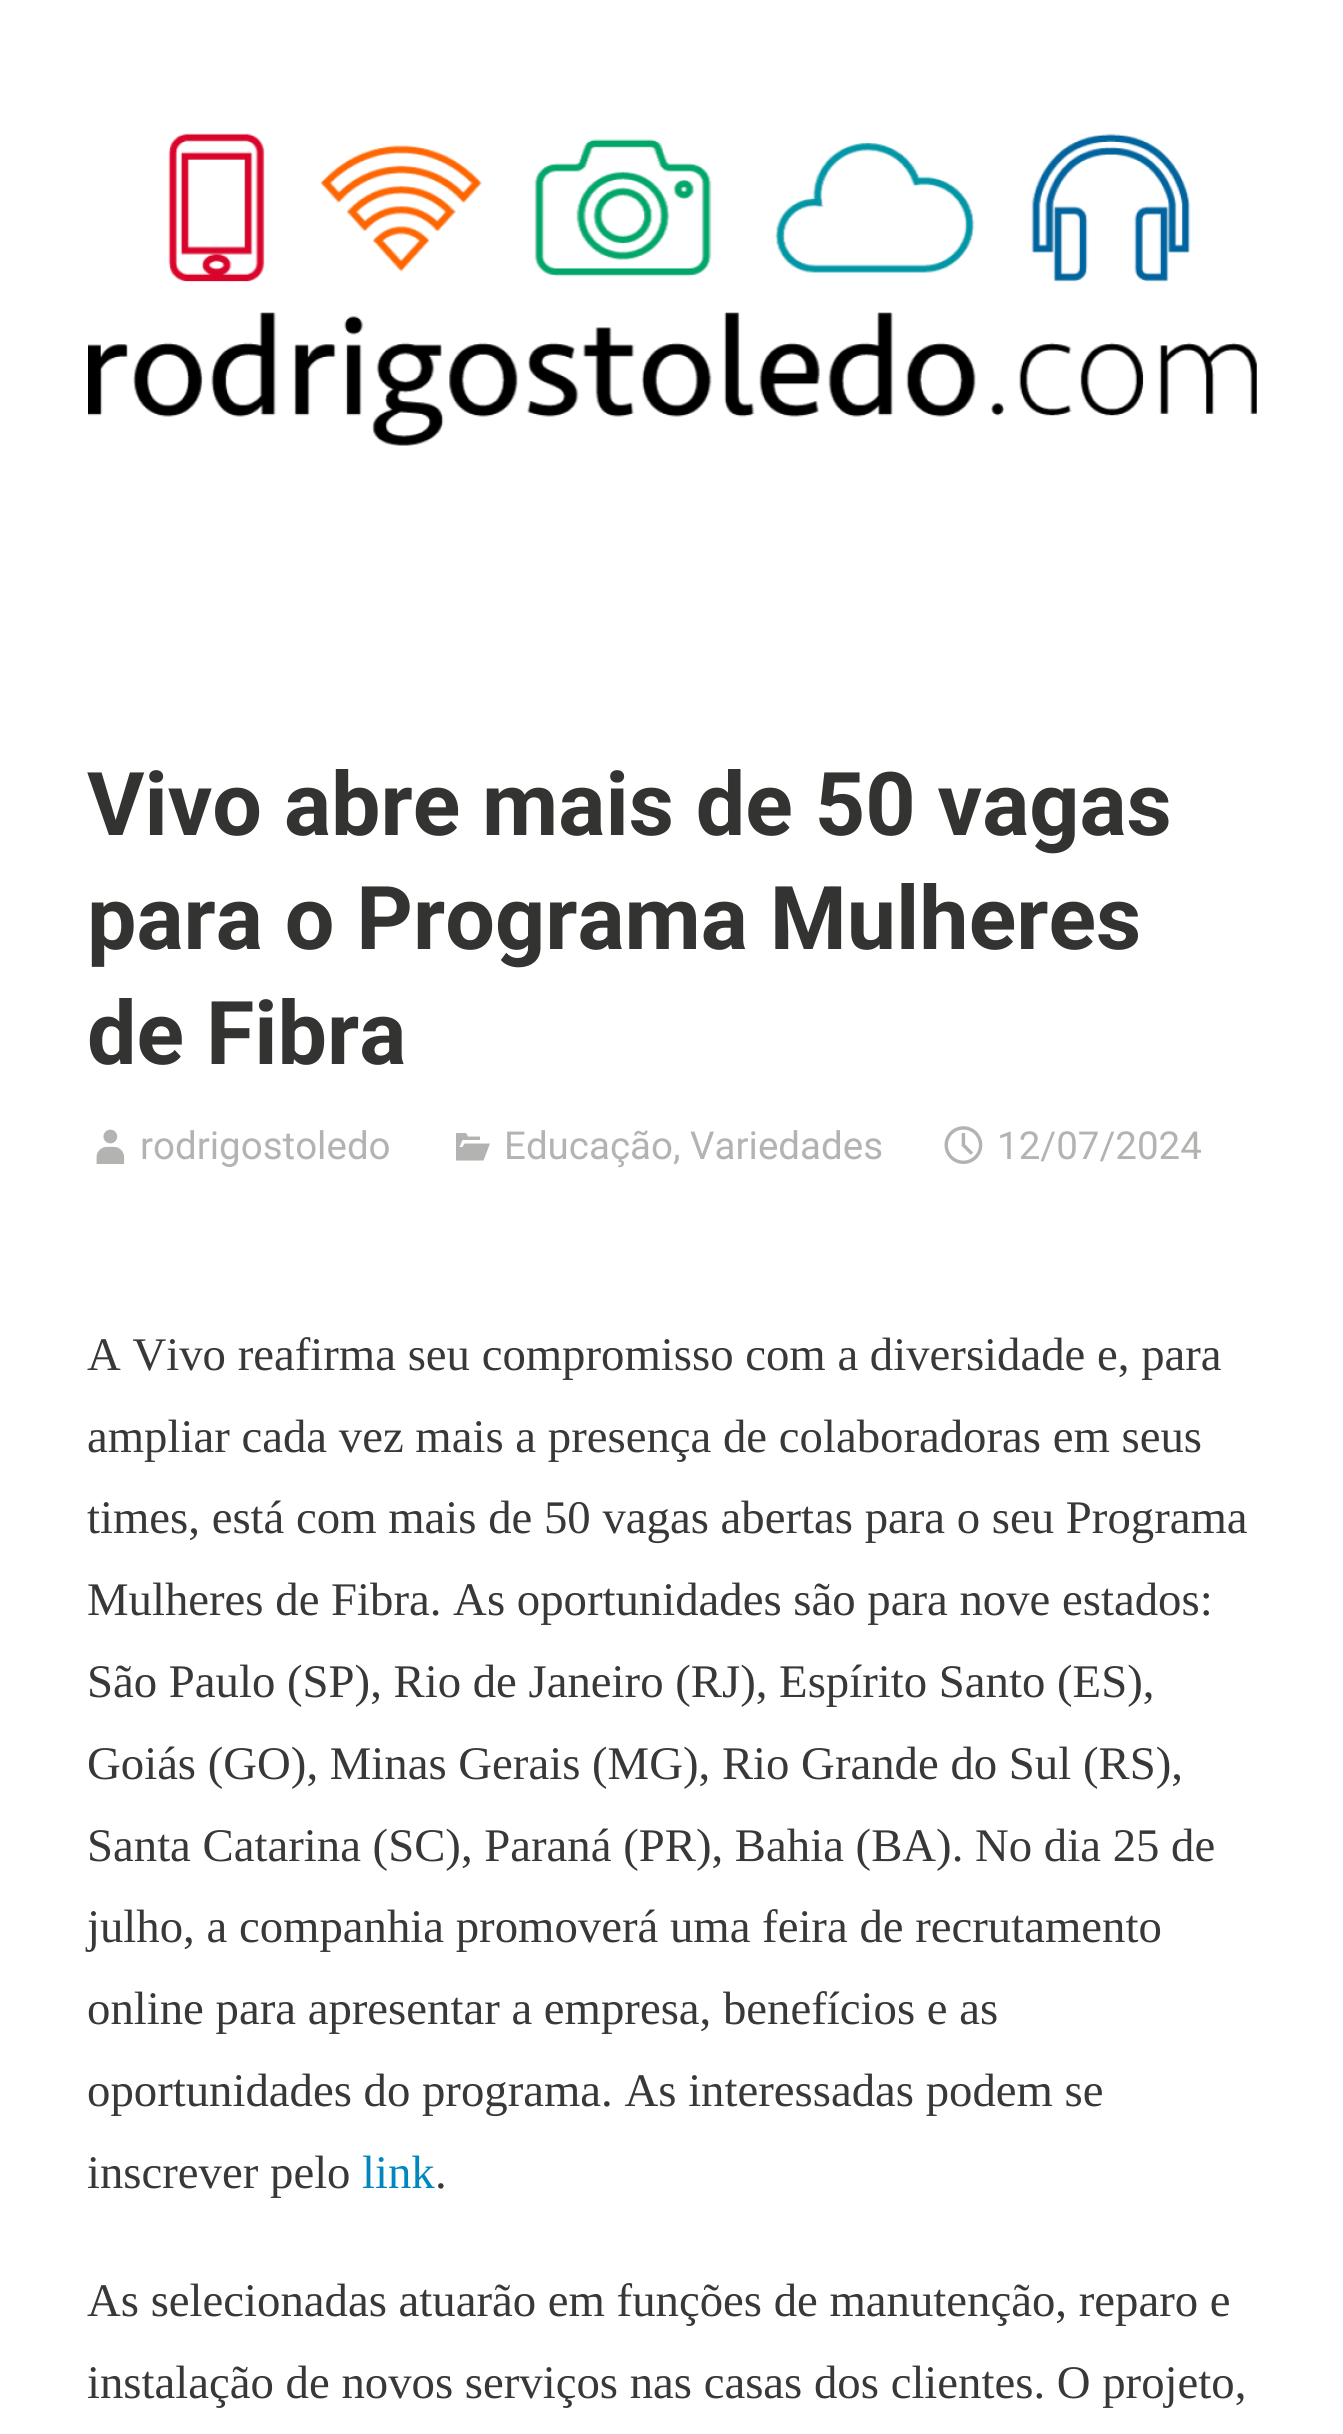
import math
import cairo

surface = cairo.ImageSurface(cairo.Format.RGB24, 1343, 2434)
ctx = cairo.Context(surface)
options = cairo.FontOptions()
options.set_hint_metrics(cairo.HintMetrics.OFF)
options.set_hint_style(cairo.HintStyle.NONE)
ctx.set_font_options(options)
ctx.set_miter_limit(4)


def ink(r, g, b):
    ctx.set_source_rgb(r / 255, g / 255, b / 255)


def write(x, y, s, family, size, color, bold=False, italic=False):
    ctx.select_font_face(family, cairo.FontSlant.ITALIC if italic else cairo.FontSlant.NORMAL, cairo.FontWeight.BOLD if bold else cairo.FontWeight.NORMAL)
    ctx.set_font_size(size)
    ink(*color)
    ctx.move_to(x, y)
    ctx.show_text(s)


def paste(path, x, y, w, h):
    ctx.save()
    ctx.set_source_surface(cairo.ImageSurface.create_from_png(path), x, y)
    ctx.rectangle(x, y, w, h)
    ctx.fill()
    ctx.restore()


s1 = dict(family="Roboto", size=88, color=(51, 51, 50), bold=True)
s2 = dict(family="Roboto", size=38.5, color=(179, 179, 177))
s3 = dict(family="Liberation Serif", size=46.75, color=(56, 56, 56))
s4 = dict(family="Liberation Serif", size=46.75, color=(0, 135, 190))

ink(255, 255, 255)
ctx.paint()
paste("pic1.png", 88, 133, 1169, 313)
write(87, 835, "Vivo abre mais de 50 vagas", **s1)
write(87, 949, "para o Programa Mulheres", **s1)
write(87, 1064, "de Fibra", **s1)
paste("pic2.png", 96, 1129, 29, 35)
write(140, 1159, "rodrigostoledo", **s2)
ctx.new_path()
ctx.move_to(464.5, 1143.5)
ctx.line_to(490, 1143.5)
ctx.line_to(483.5, 1160.5)
ctx.line_to(456, 1160.5)
ctx.line_to(456, 1133)
ctx.line_to(466, 1133)
ctx.line_to(468, 1136.5)
ctx.line_to(480, 1136.5)
ctx.line_to(480, 1140)
ctx.line_to(462.5, 1140)
ctx.line_to(459.5, 1147)
ctx.line_to(462.5, 1147)
ctx.close_path()
ctx.fill()
write(504, 1159, "Educação, Variedades", **s2)
paste("pic3.png", 944, 1126, 39, 38)
write(997, 1159, "12/07/2024", **s2)
write(87, 1370, "A Vivo reafirma seu compromisso com a diversidade e, para", **s3)
write(87, 1452, "ampliar cada vez mais a presença de colaboradoras em seus", **s3)
write(87, 1533, "times, está com mais de 50 vagas abertas para o seu Programa", **s3)
write(87, 1615, "Mulheres de Fibra. As oportunidades são para nove estados:", **s3)
write(87, 1697, "São Paulo (SP), Rio de Janeiro (RJ), Espírito Santo (ES),", **s3)
write(87, 1779, "Goiás (GO), Minas Gerais (MG), Rio Grande do Sul (RS),", **s3)
write(87, 1861, "Santa Catarina (SC), Paraná (PR), Bahia (BA). No dia 25 de", **s3)
write(87, 1942, "julho, a companhia promoverá uma feira de recrutamento", **s3)
write(87, 2024, "online para apresentar a empresa, benefícios e as", **s3)
write(87, 2106, "oportunidades do programa. As interessadas podem se", **s3)
write(87, 2188, "inscrever pelo", **s3)
write(362, 2188, "link", **s4)
write(435, 2188, ".", **s3)
write(87, 2316, "As selecionadas atuarão em funções de manutenção, reparo e", **s3)
write(87, 2398, "instalação de novos serviços nas casas dos clientes. O projeto,", **s3)
surface.write_to_png("screenshot.png")
